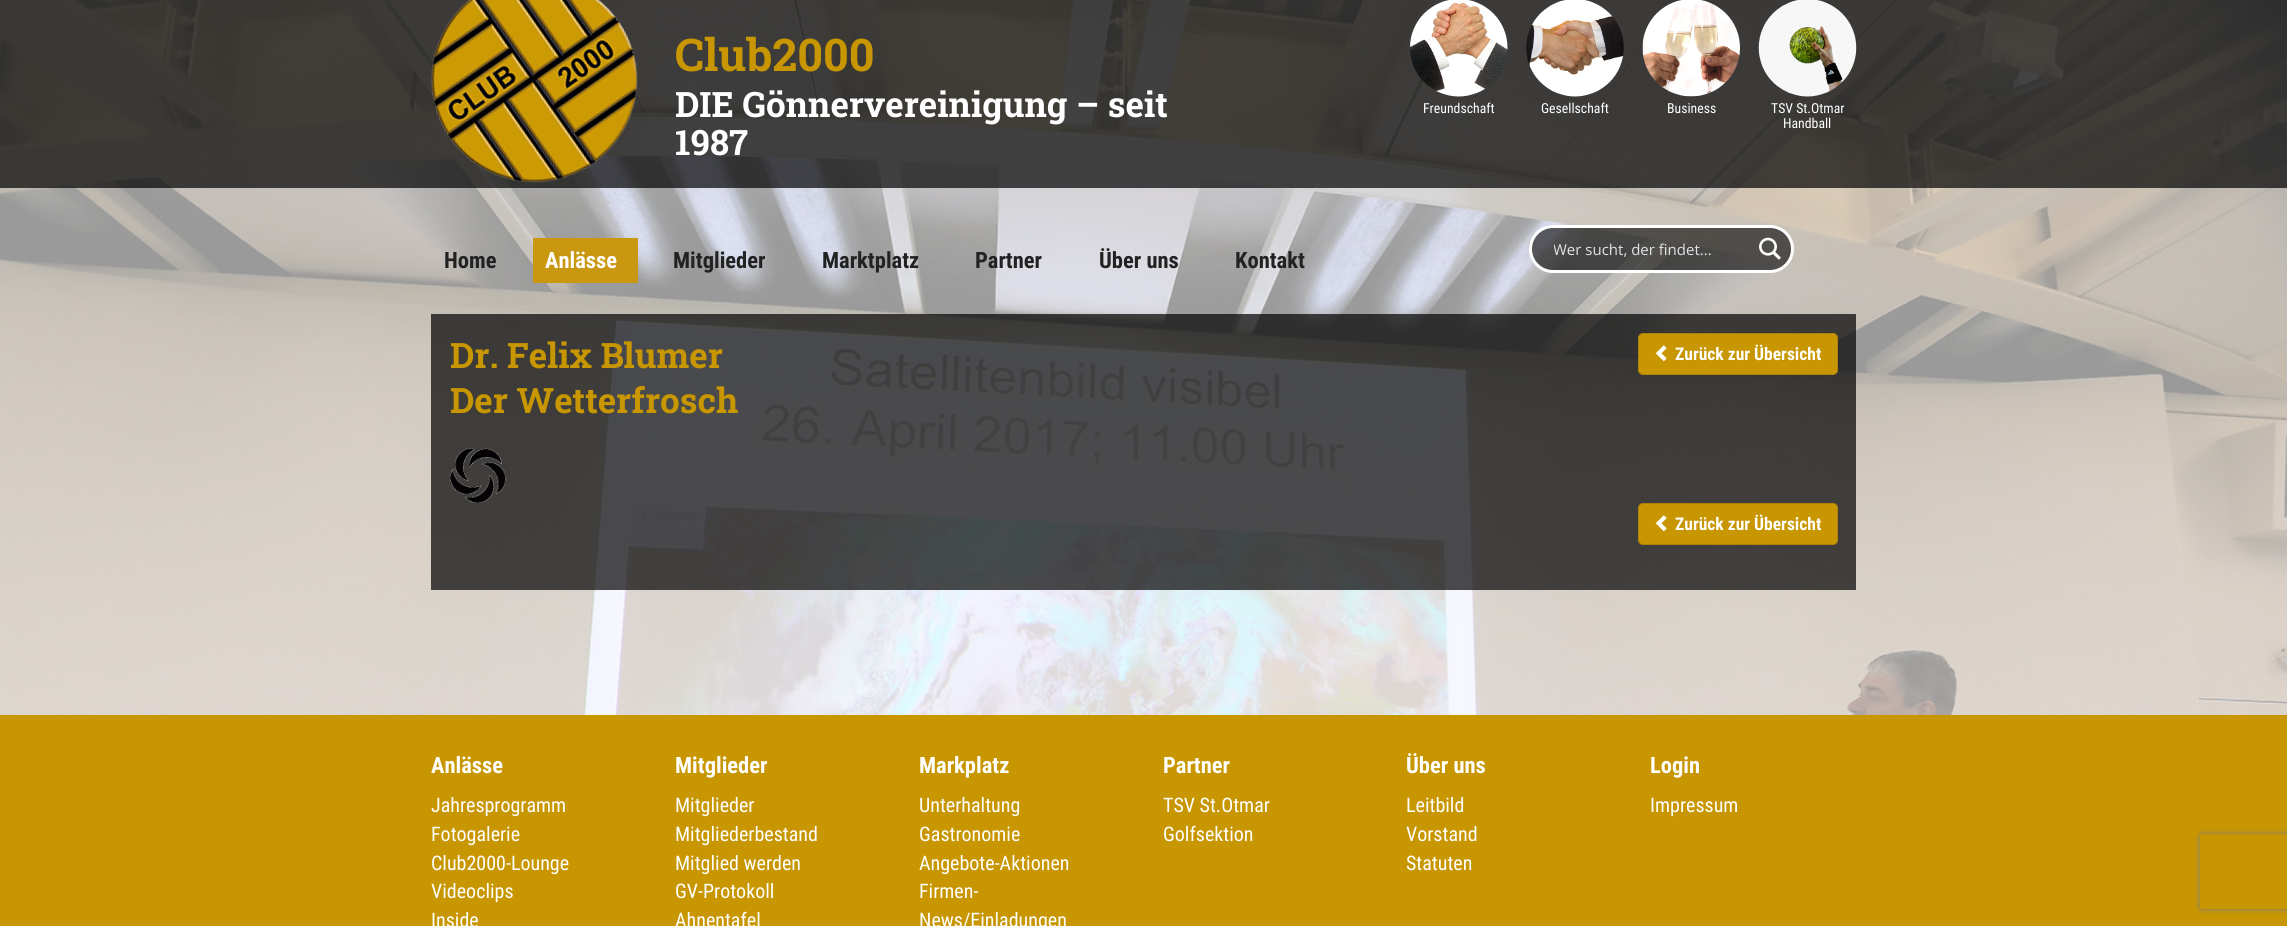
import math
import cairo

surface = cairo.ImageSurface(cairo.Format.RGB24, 2287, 926)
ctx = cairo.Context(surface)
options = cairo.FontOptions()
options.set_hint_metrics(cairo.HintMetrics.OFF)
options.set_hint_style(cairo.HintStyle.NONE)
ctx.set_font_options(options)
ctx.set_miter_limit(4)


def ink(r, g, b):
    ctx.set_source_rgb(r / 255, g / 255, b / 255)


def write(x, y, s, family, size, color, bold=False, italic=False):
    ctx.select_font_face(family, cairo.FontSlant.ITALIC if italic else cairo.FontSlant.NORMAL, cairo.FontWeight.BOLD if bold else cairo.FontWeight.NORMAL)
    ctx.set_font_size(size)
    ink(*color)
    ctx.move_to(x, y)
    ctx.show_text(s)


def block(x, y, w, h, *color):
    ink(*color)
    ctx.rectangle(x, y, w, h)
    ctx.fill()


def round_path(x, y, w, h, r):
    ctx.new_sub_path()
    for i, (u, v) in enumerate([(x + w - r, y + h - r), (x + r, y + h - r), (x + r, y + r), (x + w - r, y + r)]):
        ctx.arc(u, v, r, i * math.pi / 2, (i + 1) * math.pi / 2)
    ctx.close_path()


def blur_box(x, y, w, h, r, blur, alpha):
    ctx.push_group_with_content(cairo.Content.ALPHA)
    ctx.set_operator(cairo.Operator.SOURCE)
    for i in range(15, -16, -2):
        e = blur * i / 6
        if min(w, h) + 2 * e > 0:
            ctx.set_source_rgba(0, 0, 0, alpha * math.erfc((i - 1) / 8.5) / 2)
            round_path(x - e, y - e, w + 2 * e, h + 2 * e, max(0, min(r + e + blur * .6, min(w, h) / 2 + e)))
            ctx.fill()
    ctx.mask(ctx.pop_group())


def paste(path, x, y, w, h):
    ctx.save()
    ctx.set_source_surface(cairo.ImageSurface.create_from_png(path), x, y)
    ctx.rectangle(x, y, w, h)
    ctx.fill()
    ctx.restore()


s1 = dict(family="Roboto Slab", size=45, color=(200, 150, 0), bold=True)
s2 = dict(family="Roboto Slab", size=35, color=(255, 255, 255), bold=True)
s3 = dict(family="Roboto Condensed", size=13.75, color=(255, 255, 255))
s4 = dict(family="Roboto Condensed", size=22.5, color=(34, 34, 34), bold=True)
s5 = dict(family="Roboto Condensed", size=22.5, color=(255, 255, 255), bold=True)
s6 = dict(family="Open Sans", size=15, color=(228, 227, 227))
s7 = dict(family="Roboto Slab", size=35, color=(200, 150, 0), bold=True)
s8 = dict(family="Roboto Condensed", size=17.5, color=(255, 255, 255), bold=True)
s9 = dict(family="Roboto Condensed", size=20, color=(255, 255, 255))

ink(255, 255, 255)
ctx.paint()
paste("pic1.png", 0, 0, 2287, 715)
ctx.set_source_rgba(0, 0, 0, 0.7)
ctx.rectangle(0, 0, 2287, 188)
ctx.fill()
paste("pic2.png", 431, 0, 207, 183)
write(675, 71, "Club2000", **s1)
write(675, 117, "DIE Gönnervereinigung – seit", **s2)
write(675, 155, "1987", **s2)
paste("pic3.png", 1410, 0, 98, 97)
write(1423, 113, "Freundschaft", **s3)
paste("pic4.png", 1526, 0, 98, 97)
write(1541, 113, "Gesellschaft", **s3)
paste("pic5.png", 1642, 0, 98, 97)
write(1667, 113, "Business", **s3)
paste("pic6.png", 1758, 0, 99, 97)
write(1771, 113, "TSV St.Otmar", **s3)
write(1783, 128, "Handball", **s3)
write(444, 268, "Home", **s4)
block(533, 238, 105, 45, 201, 152, 16)
write(545, 268, "Anlässe", **s5)
write(673, 268, "Mitglieder", **s4)
write(822, 268, "Marktplatz", **s4)
write(975, 268, "Partner", **s4)
write(1099, 268, "Über uns", **s4)
write(1235, 268, "Kontakt", **s4)
ctx.set_source_rgba(0, 0, 0, 0.6)
round_path(1530.5, 226.5, 262, 45, 22.5)
ctx.fill_preserve()
ink(255, 255, 255)
ctx.set_line_width(3)
ctx.stroke()
ctx.save()
ctx.rectangle(1554, 239, 192, 21)
ctx.clip()
write(1553, 255, "Wer sucht, der findet...", **s6)
ctx.restore()
paste("pic7.png", 1759, 237, 22, 23)
ctx.set_source_rgba(0, 0, 0, 0.7)
ctx.rectangle(431, 314, 1425, 276)
ctx.fill()
write(450, 368, "Dr. Felix Blumer", **s7)
write(450, 413, "Der Wetterfrosch", **s7)
round_path(1638.5, 333.5, 199, 41, 4.5)
ctx.fill_preserve()
ink(173, 130, 11)
ctx.set_line_width(1)
ctx.stroke()
paste("pic8.png", 1655, 345, 12, 17)
write(1675, 360, "Zurück zur Übersicht", **s8)
paste("pic9.png", 450, 448, 57, 55)
ink(200, 150, 0)
round_path(1638.5, 503.5, 199, 41, 4.5)
ctx.fill_preserve()
ink(173, 130, 11)
ctx.stroke()
paste("pic8.png", 1655, 515, 12, 17)
write(1675, 530, "Zurück zur Übersicht", **s8)
block(0, 715, 2287, 211, 200, 150, 0)
write(431, 773, "Anlässe", **s5)
write(431, 812, "Jahresprogramm", **s9)
write(431, 841, "Fotogalerie", **s9)
write(431, 870, "Club2000-Lounge", **s9)
write(431, 898, "Videoclips", **s9)
write(431, 927, "Inside", **s9)
write(675, 773, "Mitglieder", **s5)
write(675, 812, "Mitglieder", **s9)
write(675, 841, "Mitgliederbestand", **s9)
write(675, 870, "Mitglied werden", **s9)
write(675, 898, "GV-Protokoll", **s9)
write(675, 927, "Ahnentafel", **s9)
write(919, 773, "Markplatz", **s5)
write(919, 812, "Unterhaltung", **s9)
write(919, 841, "Gastronomie", **s9)
write(919, 870, "Angebote-Aktionen", **s9)
write(919, 898, "Firmen-", **s9)
write(919, 927, "News/Einladungen", **s9)
write(1163, 773, "Partner", **s5)
write(1163, 812, "TSV St.Otmar", **s9)
write(1163, 841, "Golfsektion", **s9)
write(1406, 773, "Über uns", **s5)
write(1406, 812, "Leitbild", **s9)
write(1406, 841, "Vorstand", **s9)
write(1406, 870, "Statuten", **s9)
write(1650, 773, "Login", **s5)
write(1650, 812, "Impressum", **s9)
ctx.save()
ctx.set_fill_rule(cairo.FillRule.EVEN_ODD)
ctx.new_path()
ctx.move_to(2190, 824)
ctx.line_to(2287, 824)
ctx.line_to(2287, 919)
ctx.line_to(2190, 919)
ctx.close_path()
ctx.move_to(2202.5, 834)
ctx.line_to(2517.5, 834)
ctx.curve_to(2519, 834, 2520, 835, 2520, 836.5)
ctx.line_to(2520, 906.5)
ctx.curve_to(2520, 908, 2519, 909, 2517.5, 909)
ctx.line_to(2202.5, 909)
ctx.curve_to(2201, 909, 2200, 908, 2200, 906.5)
ctx.line_to(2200, 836.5)
ctx.curve_to(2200, 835, 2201, 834, 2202.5, 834)
ctx.close_path()
ctx.clip()
ink(128, 128, 128)
blur_box(2200, 834, 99, 75, 2.5, 3, 1)
ctx.restore()
surface.write_to_png("screenshot.png")
